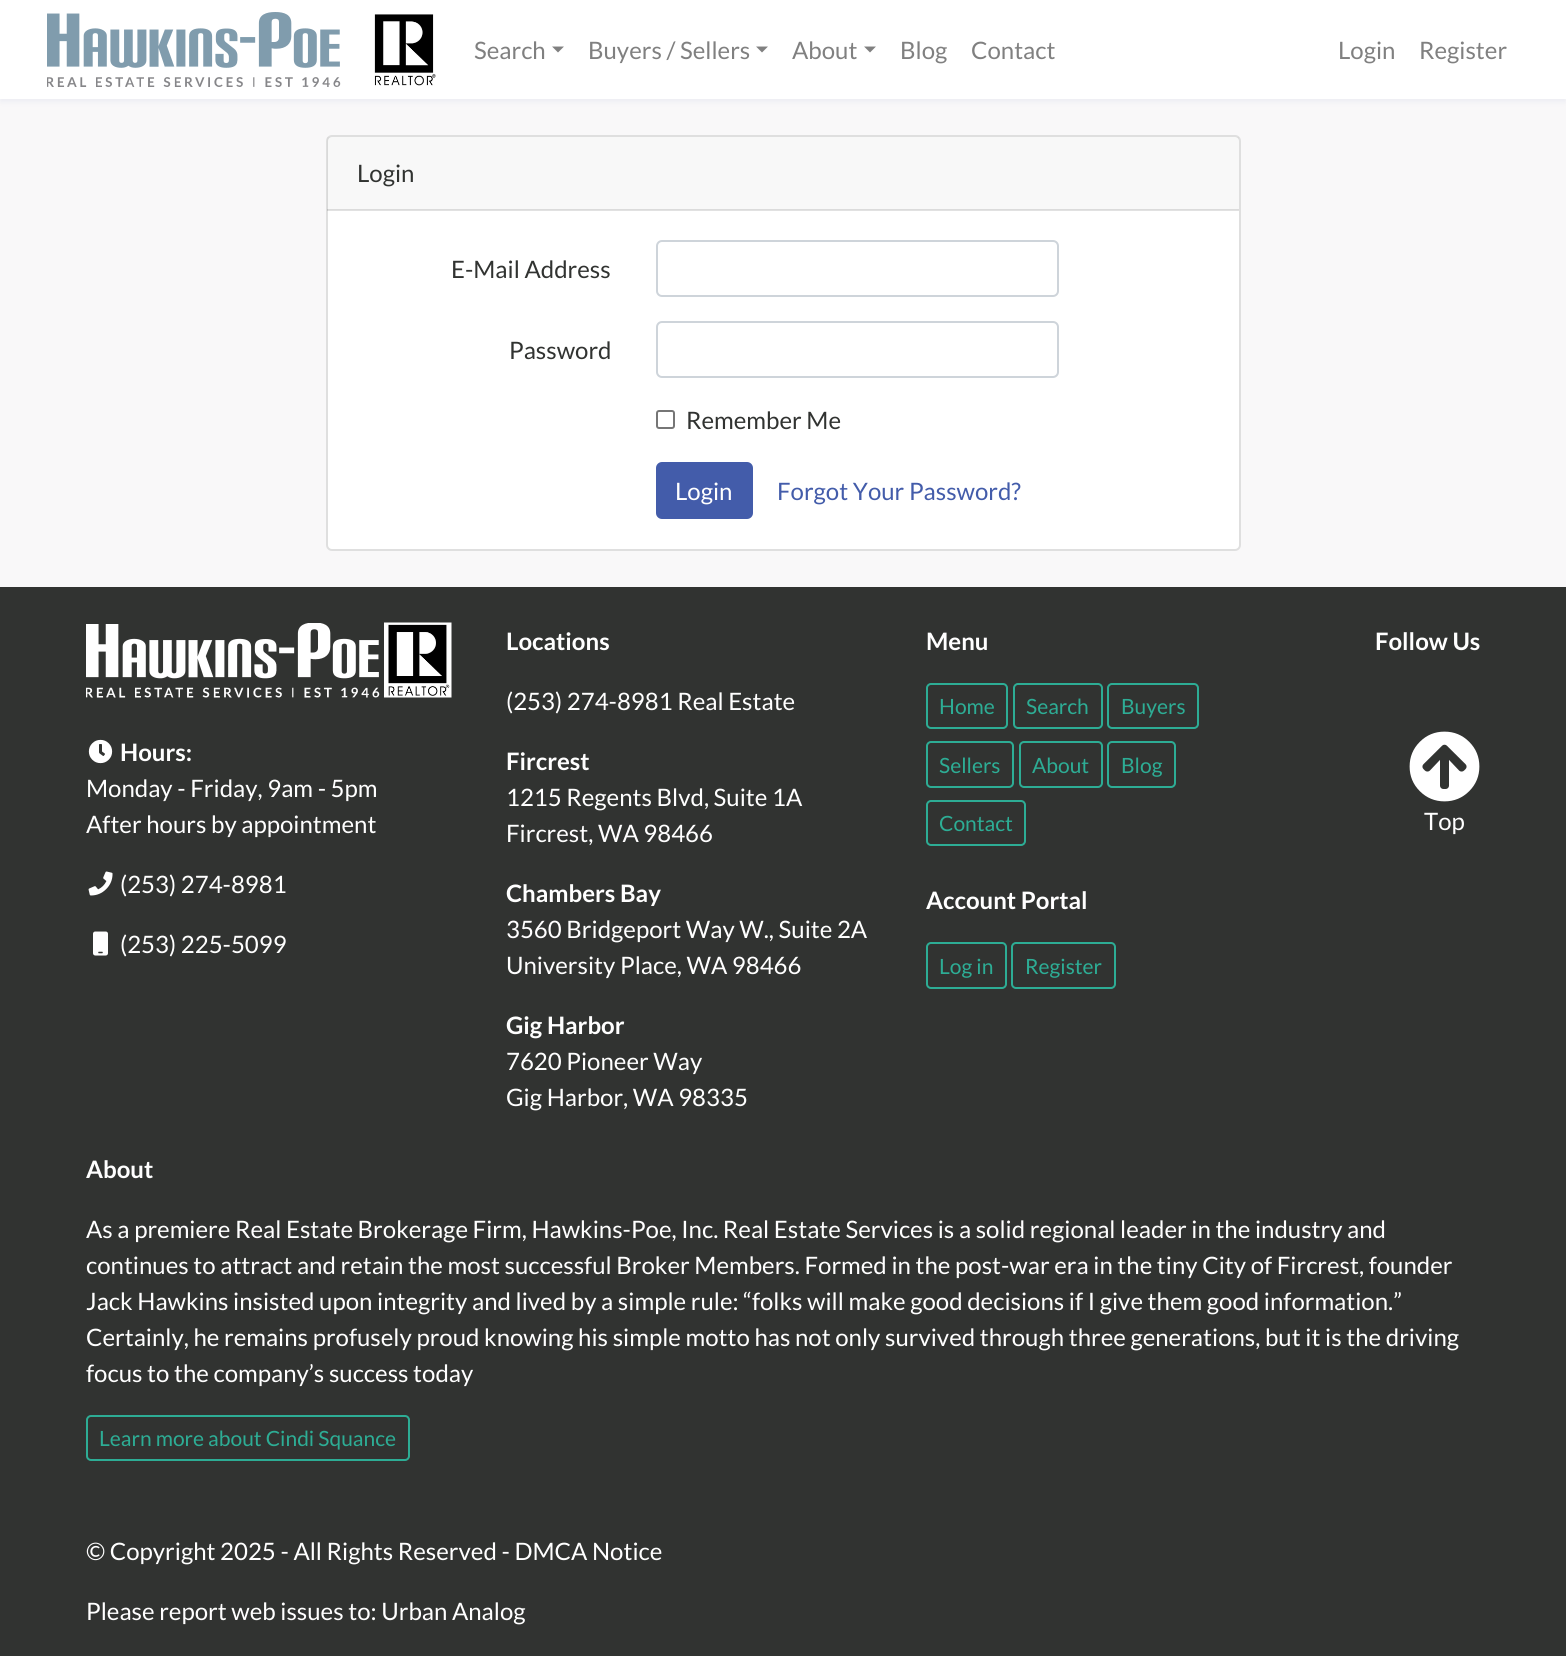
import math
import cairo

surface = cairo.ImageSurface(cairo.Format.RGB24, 1566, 1656)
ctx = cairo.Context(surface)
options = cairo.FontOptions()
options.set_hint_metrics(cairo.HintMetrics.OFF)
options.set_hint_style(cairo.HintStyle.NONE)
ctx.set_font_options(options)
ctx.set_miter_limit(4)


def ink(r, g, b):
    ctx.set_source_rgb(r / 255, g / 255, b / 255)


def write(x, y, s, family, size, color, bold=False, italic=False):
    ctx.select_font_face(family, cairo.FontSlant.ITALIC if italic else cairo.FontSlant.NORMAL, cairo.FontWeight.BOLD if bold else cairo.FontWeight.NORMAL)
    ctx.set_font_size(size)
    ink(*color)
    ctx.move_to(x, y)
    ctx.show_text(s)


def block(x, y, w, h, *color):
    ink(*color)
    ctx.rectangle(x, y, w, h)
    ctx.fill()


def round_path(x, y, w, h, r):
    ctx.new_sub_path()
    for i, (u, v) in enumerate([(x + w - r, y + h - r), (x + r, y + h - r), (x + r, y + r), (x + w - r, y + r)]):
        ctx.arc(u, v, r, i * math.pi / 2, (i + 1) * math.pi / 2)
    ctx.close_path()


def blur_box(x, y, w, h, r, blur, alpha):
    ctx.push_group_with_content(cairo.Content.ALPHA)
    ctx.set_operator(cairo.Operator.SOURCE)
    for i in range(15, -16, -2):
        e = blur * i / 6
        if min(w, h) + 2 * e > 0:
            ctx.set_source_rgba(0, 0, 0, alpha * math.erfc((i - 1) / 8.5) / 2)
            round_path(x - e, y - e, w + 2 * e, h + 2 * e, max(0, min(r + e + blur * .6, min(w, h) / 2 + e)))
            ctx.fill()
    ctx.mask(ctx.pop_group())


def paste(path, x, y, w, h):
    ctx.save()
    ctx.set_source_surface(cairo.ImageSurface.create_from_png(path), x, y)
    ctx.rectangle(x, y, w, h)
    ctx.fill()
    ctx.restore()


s1 = dict(family="Lato", size=24, color=(128, 128, 128))
s2 = dict(family="Lato", size=24, color=(49, 51, 49))
s3 = dict(family="Lato", size=24, color=(255, 255, 255))
s4 = dict(family="Lato", size=24, color=(67, 92, 170))
s5 = dict(family="Lato", size=24, color=(255, 255, 255), bold=True)
s6 = dict(family="Lato", size=21, color=(45, 173, 149))

ink(249, 248, 249)
ctx.paint()
ink(67, 92, 170)
blur_box(0, 3, 1566, 99, 0, 3, 0.07)
block(0, 0, 1566, 99, 255, 255, 255)
paste("pic1.png", 47, 12, 294, 75)
paste("pic2.png", 374, 14, 62, 72)
write(474, 59, "Search", **s1)
ctx.new_path()
ctx.move_to(552, 46.5)
ctx.line_to(564, 46.5)
ctx.line_to(558, 52.5)
ctx.close_path()
ctx.fill()
write(588, 59, "Buyers / Sellers", **s1)
ctx.new_path()
ctx.move_to(756, 46.5)
ctx.line_to(768, 46.5)
ctx.line_to(762, 52.5)
ctx.close_path()
ctx.fill()
write(792, 59, "About", **s1)
ctx.new_path()
ctx.move_to(864, 46.5)
ctx.line_to(876, 46.5)
ctx.line_to(870, 52.5)
ctx.close_path()
ctx.fill()
write(900, 59, "Blog", **s1)
write(971, 59, "Contact", **s1)
write(1338, 59, "Login", **s1)
write(1419, 59, "Register", **s1)
ink(255, 255, 255)
round_path(327, 136, 913, 414, 5)
ctx.fill_preserve()
ink(223, 223, 223)
ctx.stroke()
ctx.set_source_rgba(0, 0, 0, 0.03)
ctx.rectangle(327, 137, 912, 73)
ctx.fill()
ctx.set_source_rgba(0, 0, 0, 0.12)
ctx.rectangle(327, 209, 912, 2)
ctx.fill()
write(357, 182, "Login", **s2)
write(451, 278, "E-Mail Address", **s2)
round_path(657, 241, 401, 55, 5)
ink(206, 212, 218)
ctx.stroke()
write(509, 359, "Password", **s2)
round_path(657, 322, 401, 55, 5)
ink(206, 212, 218)
ctx.stroke()
round_path(657, 411, 17, 17, 2)
ink(118, 118, 118)
ctx.stroke()
write(686, 429, "Remember Me", **s2)
ink(67, 92, 170)
round_path(657, 463, 95, 55, 5)
ctx.fill_preserve()
ctx.stroke()
write(675, 500, "Login", **s3)
write(777, 500, "Forgot Your Password?", **s4)
block(0, 587, 1566, 1069, 49, 51, 49)
paste("pic3.png", 86, 623, 294, 75)
paste("pic4.png", 384, 622, 68, 76)
paste("pic5.png", 88, 739, 25, 25)
write(120, 761, "Hours:", **s5)
write(86, 797, "Monday - Friday, 9am - 5pm", **s3)
write(86, 833, "After hours by appointment", **s3)
paste("pic6.png", 88, 871, 25, 25)
write(120, 893, "(253) 274-8981", **s3)
paste("pic7.png", 93, 931, 15, 25)
write(120, 953, "(253) 225-5099", **s3)
write(506, 650, "Locations", **s5)
write(506, 710, "(253) 274-8981 Real Estate", **s3)
write(506, 770, "Fircrest", **s5)
write(506, 806, "1215 Regents Blvd, Suite 1A", **s3)
write(506, 842, "Fircrest, WA 98466", **s3)
write(506, 902, "Chambers Bay", **s5)
write(506, 938, "3560 Bridgeport Way W., Suite 2A", **s3)
write(506, 974, "University Place, WA 98466", **s3)
write(506, 1034, "Gig Harbor", **s5)
write(506, 1070, "7620 Pioneer Way", **s3)
write(506, 1106, "Gig Harbor, WA 98335", **s3)
write(926, 650, "Menu", **s5)
round_path(927, 684, 80, 44, 4)
ink(45, 173, 149)
ctx.stroke()
write(939, 714, "Home", **s6)
round_path(1014, 684, 88, 44, 4)
ctx.stroke()
write(1026, 714, "Search", **s6)
round_path(1108, 684, 90, 44, 4)
ctx.stroke()
write(1121, 714, "Buyers", **s6)
round_path(927, 742, 86, 45, 4)
ctx.stroke()
write(939, 773, "Sellers", **s6)
round_path(1020, 742, 82, 45, 4)
ctx.stroke()
write(1032, 773, "About", **s6)
round_path(1108, 742, 67, 45, 4)
ctx.stroke()
write(1121, 773, "Blog", **s6)
round_path(927, 801, 98, 44, 4)
ctx.stroke()
write(939, 831, "Contact", **s6)
write(926, 909, "Account Portal", **s5)
round_path(927, 943, 79, 45, 4)
ink(45, 173, 149)
ctx.stroke()
write(939, 974, "Log in", **s6)
round_path(1012, 943, 103, 45, 4)
ctx.stroke()
write(1025, 974, "Register", **s6)
write(1375, 650, "Follow Us", **s5)
paste("pic8.png", 1409, 731, 71, 71)
write(1424, 830, "Top", **s3)
write(86, 1178, "About", **s5)
write(86, 1238, "As a premiere Real Estate Brokerage Firm, Hawkins-Poe, Inc. Real Estate Services is a solid regional leader in the industry and", **s3)
write(86, 1274, "continues to attract and retain the most successful Broker Members. Formed in the post-war era in the tiny City of Fircrest, founder", **s3)
write(86, 1310, "Jack Hawkins insisted upon integrity and lived by a simple rule: “folks will make good decisions if I give them good information.”", **s3)
write(86, 1346, "Certainly, he remains profusely proud knowing his simple motto has not only survived through three generations, but it is the driving", **s3)
write(86, 1382, "focus to the company’s success today", **s3)
round_path(87, 1416, 322, 44, 4)
ink(45, 173, 149)
ctx.stroke()
write(99, 1446, "Learn more about Cindi Squance", **s6)
write(86, 1560, "© Copyright 2025 - All Rights Reserved - DMCA Notice", **s3)
write(86, 1620, "Please report web issues to: Urban Analog", **s3)
surface.write_to_png("screenshot.png")
